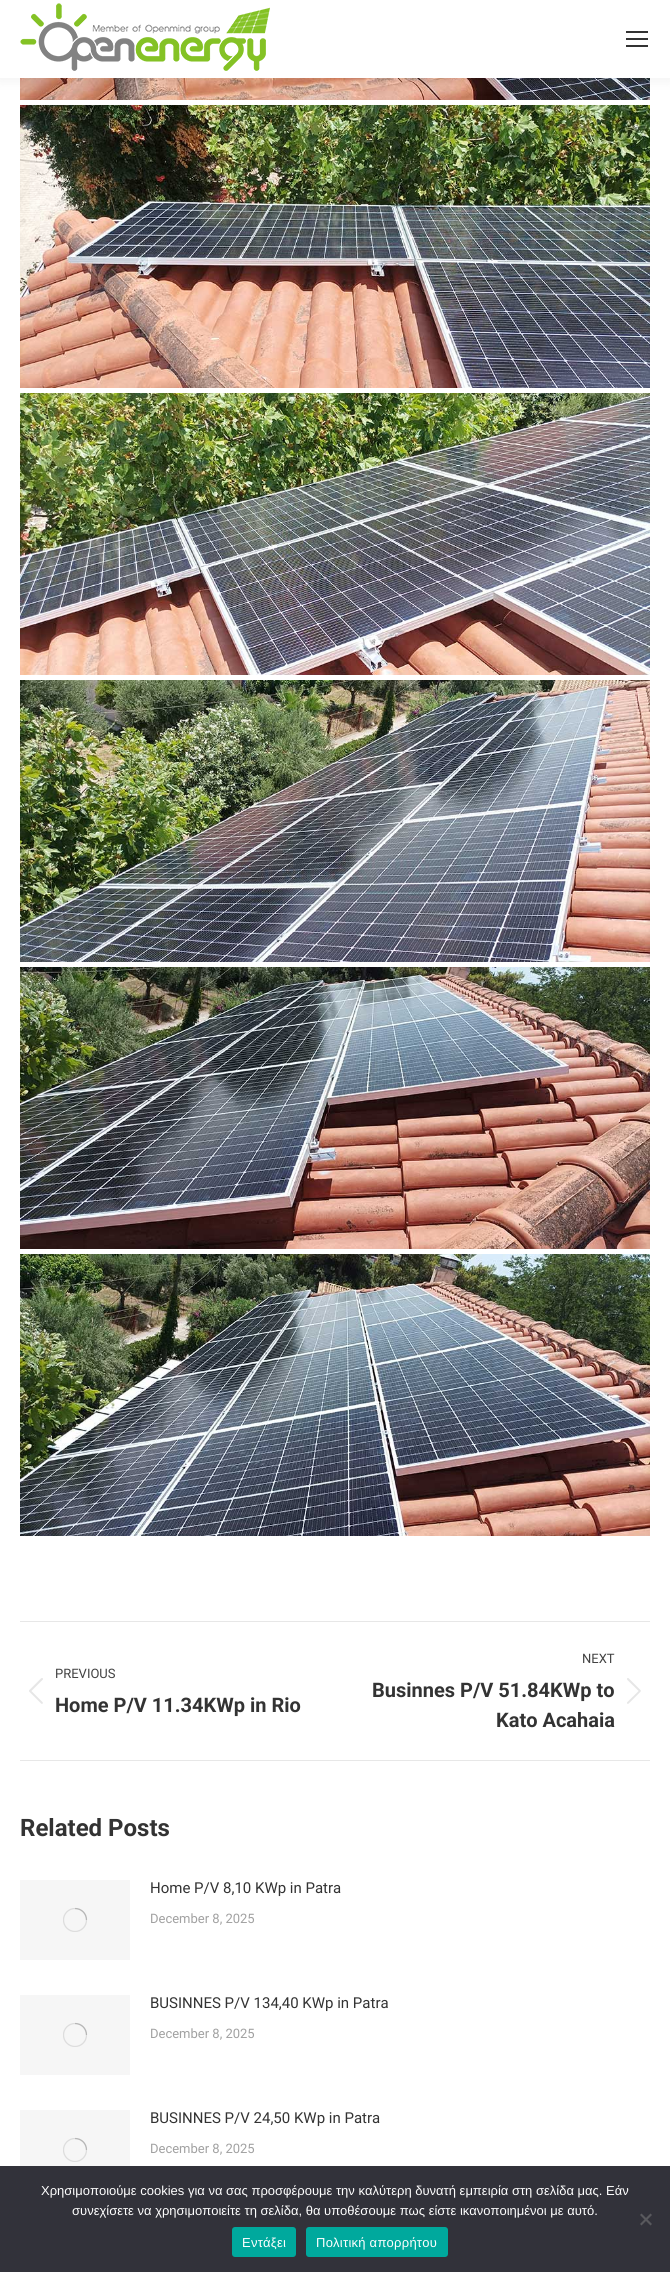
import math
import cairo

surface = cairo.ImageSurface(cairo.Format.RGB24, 670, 2272)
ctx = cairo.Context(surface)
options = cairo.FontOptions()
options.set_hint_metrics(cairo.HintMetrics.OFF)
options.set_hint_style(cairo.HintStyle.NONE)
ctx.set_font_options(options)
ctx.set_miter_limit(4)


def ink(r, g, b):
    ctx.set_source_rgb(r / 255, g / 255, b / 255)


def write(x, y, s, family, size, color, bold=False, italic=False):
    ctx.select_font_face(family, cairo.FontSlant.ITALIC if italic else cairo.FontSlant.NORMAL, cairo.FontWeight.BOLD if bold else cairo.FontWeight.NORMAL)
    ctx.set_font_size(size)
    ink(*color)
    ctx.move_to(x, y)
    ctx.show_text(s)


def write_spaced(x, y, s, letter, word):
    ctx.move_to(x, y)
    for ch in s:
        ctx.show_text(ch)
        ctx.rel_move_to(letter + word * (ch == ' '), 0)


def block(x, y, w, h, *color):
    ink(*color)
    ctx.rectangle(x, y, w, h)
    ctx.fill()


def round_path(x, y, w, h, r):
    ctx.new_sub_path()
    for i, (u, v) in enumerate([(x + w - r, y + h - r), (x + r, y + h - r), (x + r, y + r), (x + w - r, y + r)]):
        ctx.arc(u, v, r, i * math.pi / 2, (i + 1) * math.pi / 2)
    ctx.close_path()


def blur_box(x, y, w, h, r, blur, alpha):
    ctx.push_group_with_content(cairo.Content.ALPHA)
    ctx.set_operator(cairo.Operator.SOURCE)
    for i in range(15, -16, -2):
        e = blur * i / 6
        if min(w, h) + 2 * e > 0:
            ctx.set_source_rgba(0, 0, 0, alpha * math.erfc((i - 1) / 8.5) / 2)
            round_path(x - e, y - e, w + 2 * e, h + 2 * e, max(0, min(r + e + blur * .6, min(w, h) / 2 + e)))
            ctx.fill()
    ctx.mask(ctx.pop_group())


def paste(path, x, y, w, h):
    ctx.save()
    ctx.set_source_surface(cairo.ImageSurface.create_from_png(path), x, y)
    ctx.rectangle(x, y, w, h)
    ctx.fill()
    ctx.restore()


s1 = dict(family="Roboto", size=13, color=(66, 66, 66))
s2 = dict(family="Roboto", size=20, color=(51, 51, 51), bold=True)
s3 = dict(family="Roboto", size=24, color=(51, 51, 51), bold=True)
s4 = dict(family="Roboto", size=15, color=(51, 51, 51))
s5 = dict(family="Roboto", size=13, color=(161, 161, 161))
s6 = dict(family="Liberation Sans", size=13, color=(255, 255, 255))

ink(255, 255, 255)
ctx.paint()
paste("pic2.png", 20, 78, 630, 22)
ink(0, 0, 0)
blur_box(-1, -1, 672, 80, 0, 7.5, 0.07)
block(0, 0, 670, 78, 255, 255, 255)
paste("pic1.png", 20, 3, 250, 68)
block(626, 31, 22, 2, 51, 51, 51)
block(626, 38, 22, 2, 51, 51, 51)
block(626, 45, 22, 2, 51, 51, 51)
paste("pic3.png", 20, 105, 630, 283)
paste("pic4.png", 20, 393, 630, 282)
paste("pic5.png", 20, 680, 630, 282)
paste("pic6.png", 20, 967, 630, 282)
paste("pic7.png", 20, 1254, 630, 282)
block(20, 1621, 630, 1, 231, 231, 231)
block(20, 1760, 630, 1, 231, 231, 231)
write(55, 1678, "PREVIOUS", **s1)
paste("pic8.png", 29, 1678, 14, 26)
write(55, 1712, "Home P/V 11.34KWp in Rio", **s2)
write(582, 1663, "NEXT", **s1)
write(372, 1697, "Businnes P/V 51.84KWp to", **s2)
write(496, 1727, "Kato Acahaia", **s2)
paste("pic9.png", 627, 1678, 14, 26)
write(20, 1836, "Related Posts", **s3)
block(20, 1880, 110, 80, 246, 246, 246)
ctx.save()
ctx.rectangle(63, 1908, 24, 24)
ctx.clip()
ctx.arc(75, 1920, 11.5, 0, 2 * math.pi)
ink(221, 221, 221)
ctx.set_line_width(1.3)
ctx.stroke()
ctx.restore()
ctx.new_path()
ctx.move_to(86.5, 1920)
ctx.curve_to(86.5, 1913.5, 81.5, 1908.5, 75, 1908.5)
ctx.set_source_rgba(0.259, 0.259, 0.259, 0.25)
ctx.set_line_width(1.3)
ctx.stroke()
write(150, 1893, "Home P/V 8,10 KWp in Patra", **s4)
write(150, 1923, "December 8, 2025", **s5)
block(20, 1995, 110, 80, 246, 246, 246)
ctx.save()
ctx.rectangle(63, 2023, 24, 24)
ctx.clip()
ctx.arc(75, 2035, 11.5, 0, 2 * math.pi)
ink(221, 221, 221)
ctx.stroke()
ctx.restore()
ctx.new_path()
ctx.move_to(86.5, 2035)
ctx.curve_to(86.5, 2028.5, 81.5, 2023.5, 75, 2023.5)
ctx.set_source_rgba(0.259, 0.259, 0.259, 0.25)
ctx.stroke()
write(150, 2008, "BUSINNES P/V 134,40 KWp in Patra", **s4)
write(150, 2038, "December 8, 2025", **s5)
block(20, 2110, 110, 56, 246, 246, 246)
ctx.save()
ctx.rectangle(63, 2138, 24, 24)
ctx.clip()
ctx.arc(75, 2150, 11.5, 0, 2 * math.pi)
ink(221, 221, 221)
ctx.stroke()
ctx.restore()
ctx.new_path()
ctx.move_to(86.5, 2150)
ctx.curve_to(86.5, 2143.5, 81.5, 2138.5, 75, 2138.5)
ctx.set_source_rgba(0.259, 0.259, 0.259, 0.25)
ctx.stroke()
write(150, 2123, "BUSINNES P/V 24,50 KWp in Patra", **s4)
write(150, 2153, "December 8, 2025", **s5)
block(0, 2166, 670, 106, 50, 50, 58)
write(41, 2195, "Χρησιμοποιούμε cookies για να σας προσφέρουμε την καλύτερη δυνατή εμπειρία στη σελίδα μας. Εάν", **s6)
write(72, 2215, "συνεχίσετε να χρησιμοποιείτε τη σελίδα, θα υποθέσουμε πως είστε ικανοποιημένοι με αυτό.", **s6)
ink(89, 89, 93)
ctx.new_path()
ctx.move_to(650.5, 2213.5)
ctx.line_to(652, 2215)
ctx.line_to(641.5, 2225.5)
ctx.line_to(640, 2224)
ctx.close_path()
ctx.fill()
ctx.new_path()
ctx.move_to(640, 2215)
ctx.line_to(641.5, 2213.5)
ctx.line_to(652, 2224)
ctx.line_to(650.5, 2225.5)
ctx.close_path()
ctx.fill()
ink(0, 169, 157)
round_path(232, 2227, 64, 30, 3)
ctx.fill()
ink(255, 255, 255)
write_spaced(242, 2247, "Εντάξει", 0.25, 0)
ink(0, 169, 157)
round_path(306, 2227, 142, 30, 3)
ctx.fill()
ink(255, 255, 255)
write_spaced(316, 2247, "Πολιτική απορρήτου", 0.25, 0)
surface.write_to_png("screenshot.png")
